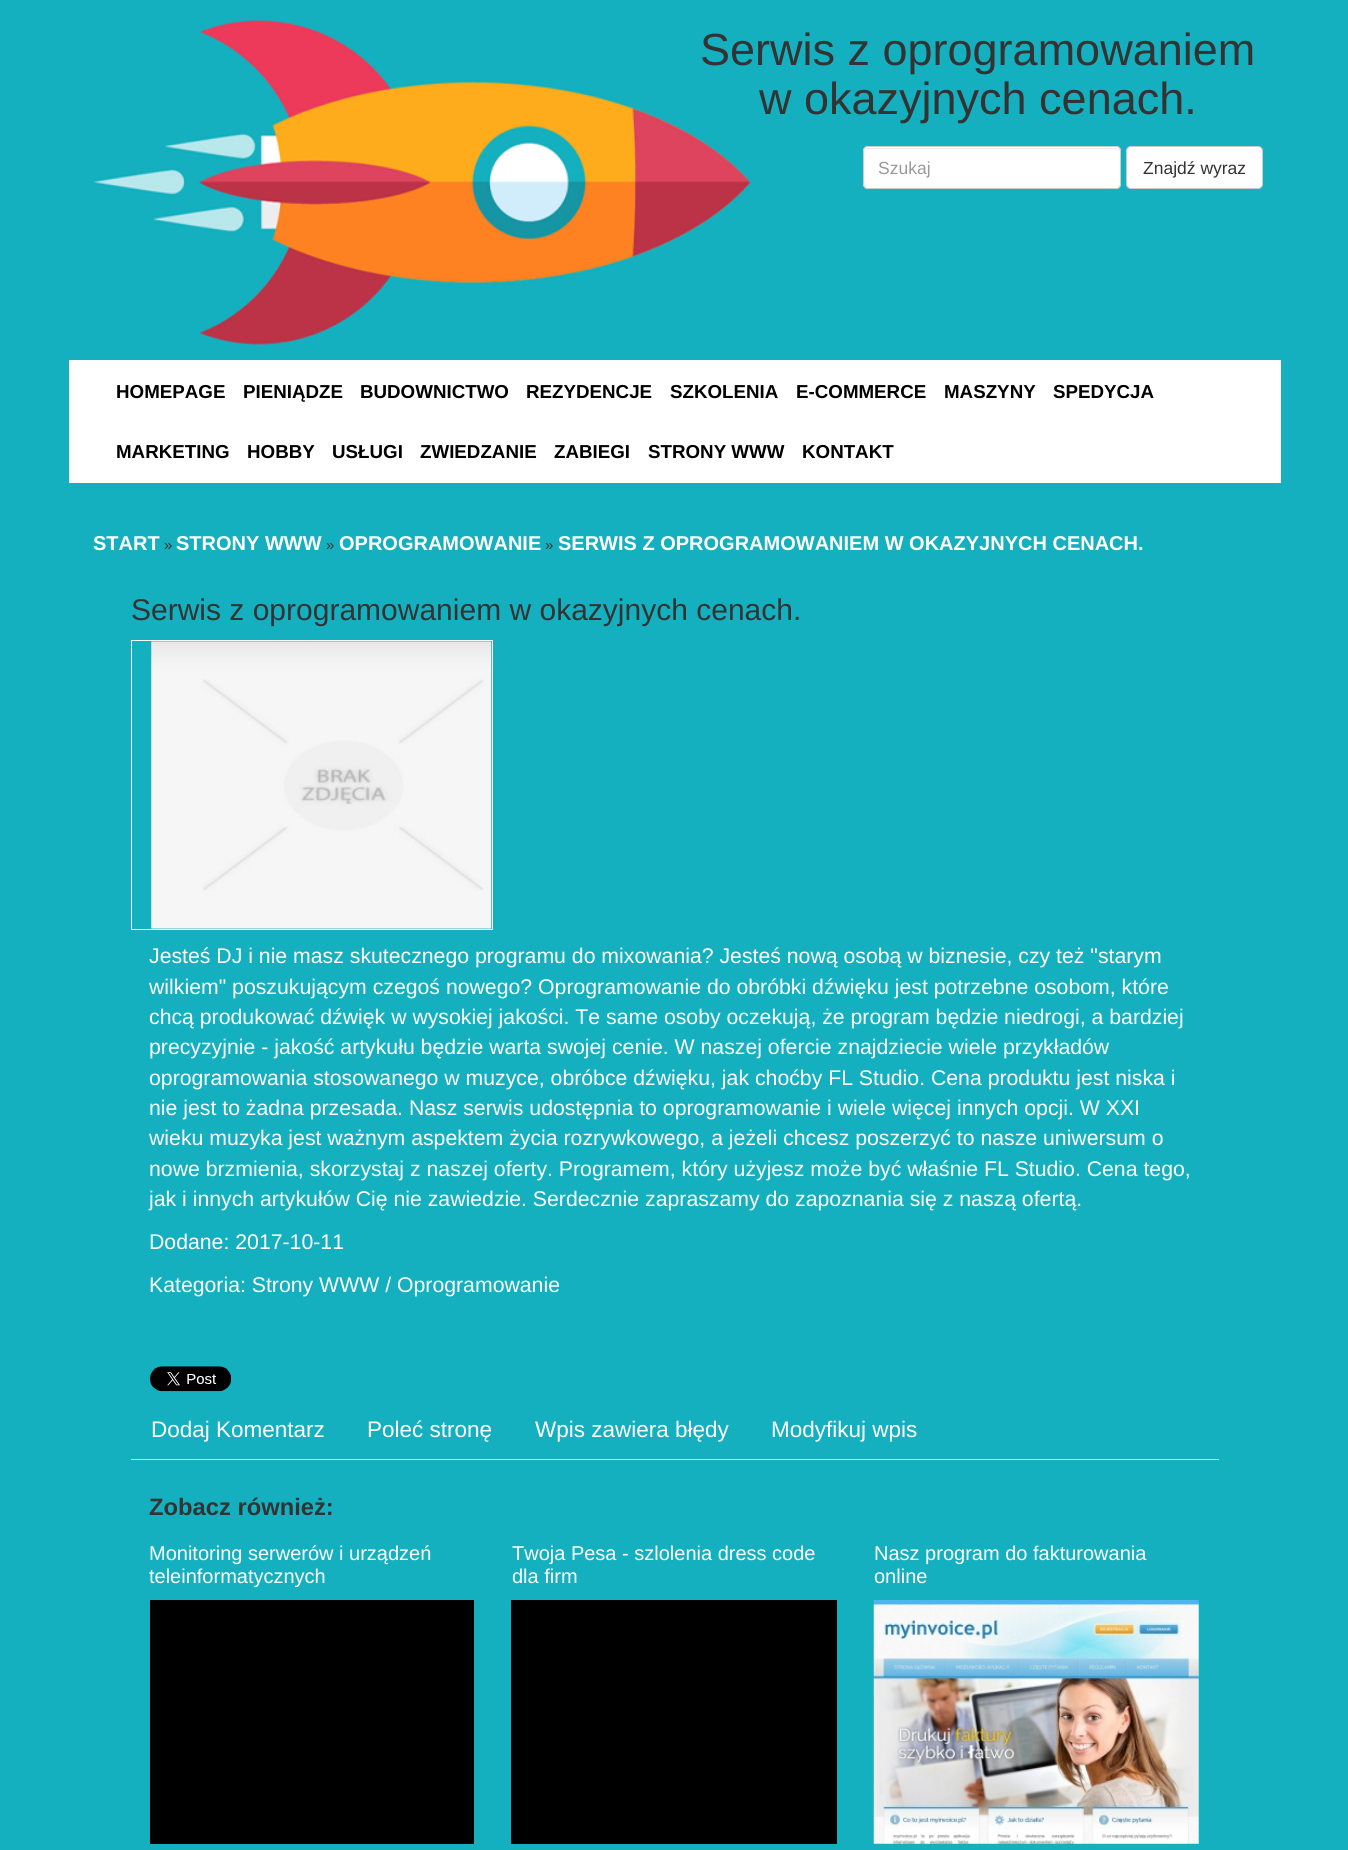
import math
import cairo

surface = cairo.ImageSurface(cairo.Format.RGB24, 1348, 1850)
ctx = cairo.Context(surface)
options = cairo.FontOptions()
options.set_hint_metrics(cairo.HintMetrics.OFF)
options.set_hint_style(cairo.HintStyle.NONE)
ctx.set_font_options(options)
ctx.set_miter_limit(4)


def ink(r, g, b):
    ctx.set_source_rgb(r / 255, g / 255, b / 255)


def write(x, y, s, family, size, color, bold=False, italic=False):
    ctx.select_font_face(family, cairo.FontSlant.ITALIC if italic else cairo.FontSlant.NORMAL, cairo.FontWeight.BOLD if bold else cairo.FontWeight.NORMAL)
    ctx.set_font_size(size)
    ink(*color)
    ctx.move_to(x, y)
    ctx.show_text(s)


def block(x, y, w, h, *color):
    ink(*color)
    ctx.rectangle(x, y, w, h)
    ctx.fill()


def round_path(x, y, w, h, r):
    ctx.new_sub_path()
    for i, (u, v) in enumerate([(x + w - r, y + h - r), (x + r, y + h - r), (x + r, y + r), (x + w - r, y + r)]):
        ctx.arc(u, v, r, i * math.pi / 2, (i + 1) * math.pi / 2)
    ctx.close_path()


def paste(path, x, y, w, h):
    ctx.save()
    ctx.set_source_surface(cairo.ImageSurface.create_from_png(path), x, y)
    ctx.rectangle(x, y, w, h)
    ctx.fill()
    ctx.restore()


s1 = dict(family="Liberation Sans", size=45, color=(51, 51, 51))
s2 = dict(family="Liberation Sans", size=17.5, color=(153, 153, 153))
s3 = dict(family="Liberation Sans", size=17.5, color=(51, 51, 51))
s4 = dict(family="Liberation Sans", size=18.75, color=(0, 0, 0), bold=True)
s5 = dict(family="Liberation Sans", size=20, color=(255, 255, 255), bold=True)
s6 = dict(family="Liberation Sans", size=15, color=(51, 51, 51))
s7 = dict(family="Liberation Sans", size=30, color=(51, 51, 51))
s8 = dict(family="Liberation Sans", size=21.25, color=(255, 255, 255))
s9 = dict(family="Liberation Sans", size=22.5, color=(255, 255, 255))
s10 = dict(family="Liberation Sans", size=23.75, color=(51, 51, 51), bold=True)
s11 = dict(family="Liberation Sans", size=20, color=(255, 255, 255))

ink(20, 176, 191)
ctx.paint()
paste("pic1.png", 94, 19, 657, 326)
write(700, 65, "Serwis z oprogramowaniem", **s1)
write(759, 114, "w okazyjnych cenach.", **s1)
ink(255, 255, 255)
round_path(863, 146, 258, 43, 5)
ctx.fill()
ink(236, 236, 236)
ctx.new_path()
ctx.move_to(868, 149)
ctx.line_to(1116, 149)
ctx.curve_to(1118, 149, 1120, 150, 1120, 152)
ctx.curve_to(1120, 150, 1118, 148, 1116, 148)
ctx.line_to(868, 148)
ctx.curve_to(866, 148, 865, 149, 864, 150)
ctx.curve_to(865, 149, 866, 149, 868, 149)
ctx.close_path()
ctx.fill()
round_path(863.5, 146.5, 257, 42, 4.5)
ink(204, 204, 204)
ctx.set_line_width(1)
ctx.stroke()
write(878, 174, "Szukaj", **s2)
ink(255, 255, 255)
round_path(1126.5, 146.5, 136, 42, 4.5)
ctx.fill_preserve()
ink(204, 204, 204)
ctx.stroke()
write(1143, 174, "Znajdź wyraz", **s3)
block(69, 360, 1212, 123, 255, 255, 255)
write(116, 398, "HOMEPAGE", **s4)
write(243, 398, "PIENIĄDZE", **s4)
write(360, 398, "BUDOWNICTWO", **s4)
write(526, 398, "REZYDENCJE", **s4)
write(670, 398, "SZKOLENIA", **s4)
write(796, 398, "E-COMMERCE", **s4)
write(944, 398, "MASZYNY", **s4)
write(1053, 398, "SPEDYCJA", **s4)
write(116, 458, "MARKETING", **s4)
write(247, 458, "HOBBY", **s4)
write(332, 458, "USŁUGI", **s4)
write(420, 458, "ZWIEDZANIE", **s4)
write(554, 458, "ZABIEGI", **s4)
write(648, 458, "STRONY WWW", **s4)
write(802, 458, "KONTAKT", **s4)
write(93, 550, "START", **s5)
write(164, 550, "»", **s6)
write(176, 550, "STRONY WWW", **s5)
write(326, 550, "»", **s6)
write(339, 550, "OPROGRAMOWANIE", **s5)
write(545, 550, "»", **s6)
write(558, 550, "SERWIS Z OPROGRAMOWANIEM W OKAZYJNYCH CENACH.", **s5)
write(131, 620, "Serwis z oprogramowaniem w okazyjnych cenach.", **s7)
ctx.rectangle(131.5, 640.5, 361, 289)
ink(255, 255, 255)
ctx.stroke()
paste("pic2.png", 151, 641, 341, 288)
write(149, 963, "Jesteś DJ i nie masz skutecznego programu do mixowania? Jesteś nową osobą w biznesie, czy też \"starym", **s8)
write(149, 994, "wilkiem\" poszukującym czegoś nowego? Oprogramowanie do obróbki dźwięku jest potrzebne osobom, które", **s8)
write(149, 1024, "chcą produkować dźwięk w wysokiej jakości. Te same osoby oczekują, że program będzie niedrogi, a bardziej", **s8)
write(149, 1054, "precyzyjnie - jakość artykułu będzie warta swojej cenie. W naszej ofercie znajdziecie wiele przykładów", **s8)
write(149, 1085, "oprogramowania stosowanego w muzyce, obróbce dźwięku, jak choćby FL Studio. Cena produktu jest niska i", **s8)
write(149, 1115, "nie jest to żadna przesada. Nasz serwis udostępnia to oprogramowanie i wiele więcej innych opcji. W XXI", **s8)
write(149, 1145, "wieku muzyka jest ważnym aspektem życia rozrywkowego, a jeżeli chcesz poszerzyć to nasze uniwersum o", **s8)
write(149, 1176, "nowe brzmienia, skorzystaj z naszej oferty. Programem, który użyjesz może być właśnie FL Studio. Cena tego,", **s8)
write(149, 1206, "jak i innych artykułów Cię nie zawiedzie. Serdecznie zapraszamy do zapoznania się z naszą ofertą.", **s8)
write(149, 1249, "Dodane: 2017-10-11", **s8)
write(149, 1292, "Kategoria: Strony WWW / Oprogramowanie", **s8)
paste("pic3.png", 150, 1366, 82, 26)
block(131, 1459, 1088, 1, 221, 221, 221)
write(151, 1437, "Dodaj Komentarz", **s9)
write(367, 1437, "Poleć stronę", **s9)
write(535, 1437, "Wpis zawiera błędy", **s9)
write(771, 1437, "Modyfikuj wpis", **s9)
write(149, 1515, "Zobacz również:", **s10)
write(149, 1560, "Monitoring serwerów i urządzeń", **s11)
write(149, 1583, "teleinformatycznych", **s11)
block(150, 1600, 324, 244, 0, 0, 0)
write(512, 1560, "Twoja Pesa - szlolenia dress code", **s11)
write(512, 1583, "dla firm", **s11)
block(511, 1600, 326, 244, 0, 0, 0)
write(874, 1560, "Nasz program do fakturowania", **s11)
write(874, 1583, "online", **s11)
paste("pic4.png", 873, 1600, 326, 244)
surface.write_to_png("screenshot.png")
